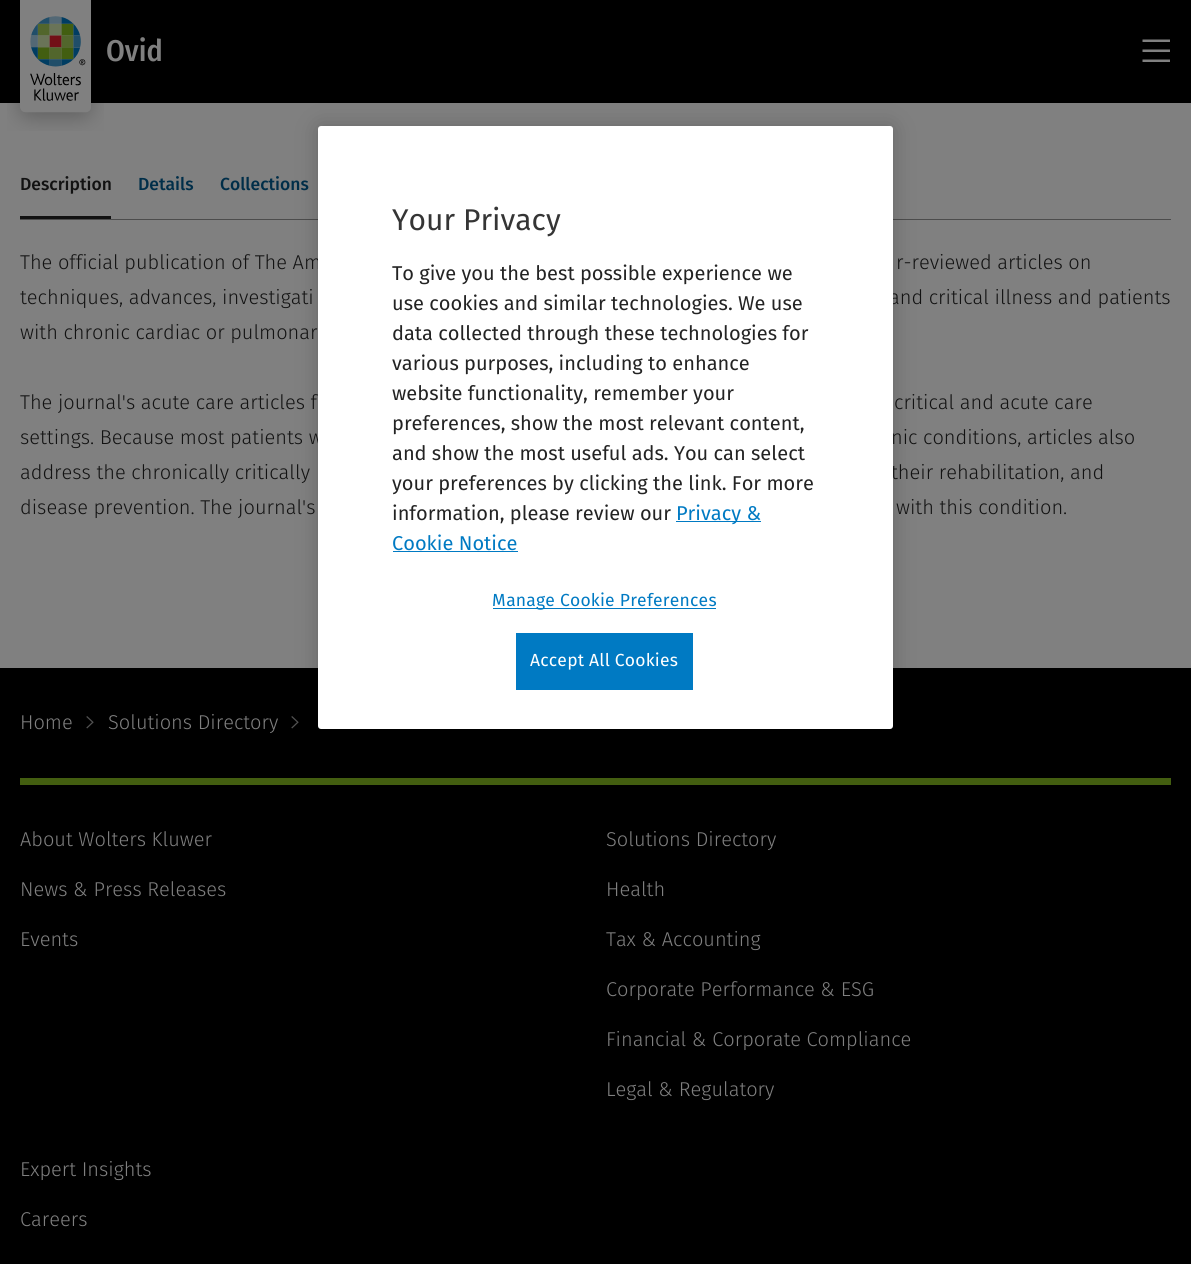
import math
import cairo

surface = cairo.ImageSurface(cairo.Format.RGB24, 1191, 1264)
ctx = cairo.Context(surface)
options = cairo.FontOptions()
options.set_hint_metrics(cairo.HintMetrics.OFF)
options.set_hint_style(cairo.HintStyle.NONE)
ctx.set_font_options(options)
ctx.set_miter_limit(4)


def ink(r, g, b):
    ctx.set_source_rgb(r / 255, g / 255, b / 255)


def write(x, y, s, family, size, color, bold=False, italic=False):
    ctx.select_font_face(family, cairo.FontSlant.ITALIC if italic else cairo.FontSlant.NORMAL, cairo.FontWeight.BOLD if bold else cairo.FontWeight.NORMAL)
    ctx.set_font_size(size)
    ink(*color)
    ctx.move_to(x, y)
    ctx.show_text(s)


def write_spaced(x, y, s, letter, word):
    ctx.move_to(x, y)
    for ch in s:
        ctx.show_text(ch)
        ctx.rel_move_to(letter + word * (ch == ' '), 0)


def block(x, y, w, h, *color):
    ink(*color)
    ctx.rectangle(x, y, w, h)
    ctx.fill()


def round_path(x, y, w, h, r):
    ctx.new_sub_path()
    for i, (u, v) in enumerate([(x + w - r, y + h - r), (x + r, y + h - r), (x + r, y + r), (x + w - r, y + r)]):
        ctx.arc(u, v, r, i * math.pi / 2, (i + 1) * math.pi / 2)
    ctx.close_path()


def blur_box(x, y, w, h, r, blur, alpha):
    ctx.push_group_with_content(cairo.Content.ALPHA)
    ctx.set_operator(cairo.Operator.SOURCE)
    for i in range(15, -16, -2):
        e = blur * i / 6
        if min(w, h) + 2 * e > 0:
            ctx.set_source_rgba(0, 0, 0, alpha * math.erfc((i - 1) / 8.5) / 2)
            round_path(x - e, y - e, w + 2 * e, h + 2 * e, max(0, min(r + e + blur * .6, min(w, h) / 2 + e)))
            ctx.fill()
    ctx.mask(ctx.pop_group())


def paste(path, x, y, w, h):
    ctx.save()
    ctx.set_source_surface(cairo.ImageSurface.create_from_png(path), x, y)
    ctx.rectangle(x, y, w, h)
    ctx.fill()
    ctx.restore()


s1 = dict(family="Fira Sans Condensed Medium", size=30, color=(128, 128, 128))
s2 = dict(family="Fira Sans Medium", size=17.5, color=(18, 18, 18))
s3 = dict(family="Fira Sans Medium", size=17.5, color=(0, 46, 73))
s4 = dict(family="Fira Sans Light", size=20, color=(18, 18, 18))
s5 = dict(family="Fira Sans Light", size=20, color=(128, 128, 128))
s6 = dict(family="Fira Sans", size=30, color=(53, 53, 53))
s7 = dict(family="Fira Sans", size=20, color=(35, 35, 35))
s8 = dict(family="Fira Sans", size=20, color=(0, 122, 195))

ink(128, 128, 128)
ctx.paint()
block(0, 0, 1191, 103, 0, 0, 0)
paste("pic1.png", 7, 0, 97, 131)
write(106, 61, "Ovid", **s1)
paste("pic2.png", 1142, 39, 28, 23)
block(20, 216, 91, 3, 18, 18, 18)
write(20, 190, "Description", **s2)
write(138, 190, "Details", **s3)
write(220, 190, "Collections", **s3)
block(20, 219, 1151, 1, 76, 76, 76)
write(20, 269, "The official publication of The Am", **s4)
write(896, 269, "r-reviewed articles on", **s4)
write(20, 304, "techniques, advances, investigati", **s4)
write(889, 304, "and critical illness and patients", **s4)
write(20, 339, "with chronic cardiac or pulmonar", **s4)
write(20, 409, "The journal's acute care articles f", **s4)
write(894, 409, "critical and acute care", **s4)
write(20, 444, "settings. Because most patients w", **s4)
write(891, 444, "nic conditions, articles also", **s4)
write(20, 479, "address the chronically critically", **s4)
write(891, 479, "their rehabilitation, and", **s4)
write(20, 514, "disease prevention. The journal's", **s4)
write(896, 514, "with this condition.", **s4)
block(0, 668, 1191, 596, 0, 0, 0)
write(20, 729, "Home", **s5)
paste("pic3.png", 86, 716, 8, 13)
write(108, 729, "Solutions Directory", **s5)
paste("pic3.png", 291, 716, 8, 13)
block(20, 778, 1151, 7, 67, 94, 16)
write(20, 846, "About Wolters Kluwer", **s5)
write(20, 896, "News & Press Releases", **s5)
write(20, 946, "Events", **s5)
write(606, 846, "Solutions Directory", **s5)
write(606, 896, "Health", **s5)
write(606, 946, "Tax & Accounting", **s5)
write(606, 996, "Corporate Performance & ESG", **s5)
write(606, 1046, "Financial & Corporate Compliance", **s5)
write(606, 1096, "Legal & Regulatory", **s5)
write(20, 1176, "Expert Insights", **s5)
write(20, 1226, "Careers", **s5)
ink(0, 0, 0)
blur_box(318, 126, 575, 603, 3, 11, 0.2)
ink(255, 255, 255)
round_path(318, 126, 575, 603, 3)
ctx.fill()
write(392, 230, "Your Privacy", **s6)
write(392, 280, "To give you the best possible experience we", **s7)
write(392, 310, "use cookies and similar technologies. We use", **s7)
write(392, 340, "data collected through these technologies for", **s7)
write(392, 370, "various purposes, including to enhance", **s7)
write(392, 400, "website functionality, remember your", **s7)
write(392, 430, "preferences, show the most relevant content,", **s7)
write(392, 460, "and show the most useful ads. You can select", **s7)
write(392, 490, "your preferences by clicking the link. For more", **s7)
write(392, 520, "information, please review our", **s7)
block(676, 521, 85, 1, 0, 122, 195)
write(676, 520, "Privacy &", **s8)
write(392, 550, "Cookie Notice", **s8)
block(393, 551, 125, 1, 0, 122, 195)
block(493, 608, 223, 1, 0, 122, 195)
ctx.set_font_size(17.5)
write_spaced(492, 606, "Manage Cookie Preferences", 0.2, 0)
block(516, 633, 177, 57, 0, 122, 195)
ink(255, 255, 255)
write_spaced(530, 666, "Accept All Cookies", 0.2, 0)
surface.write_to_png("screenshot.png")
